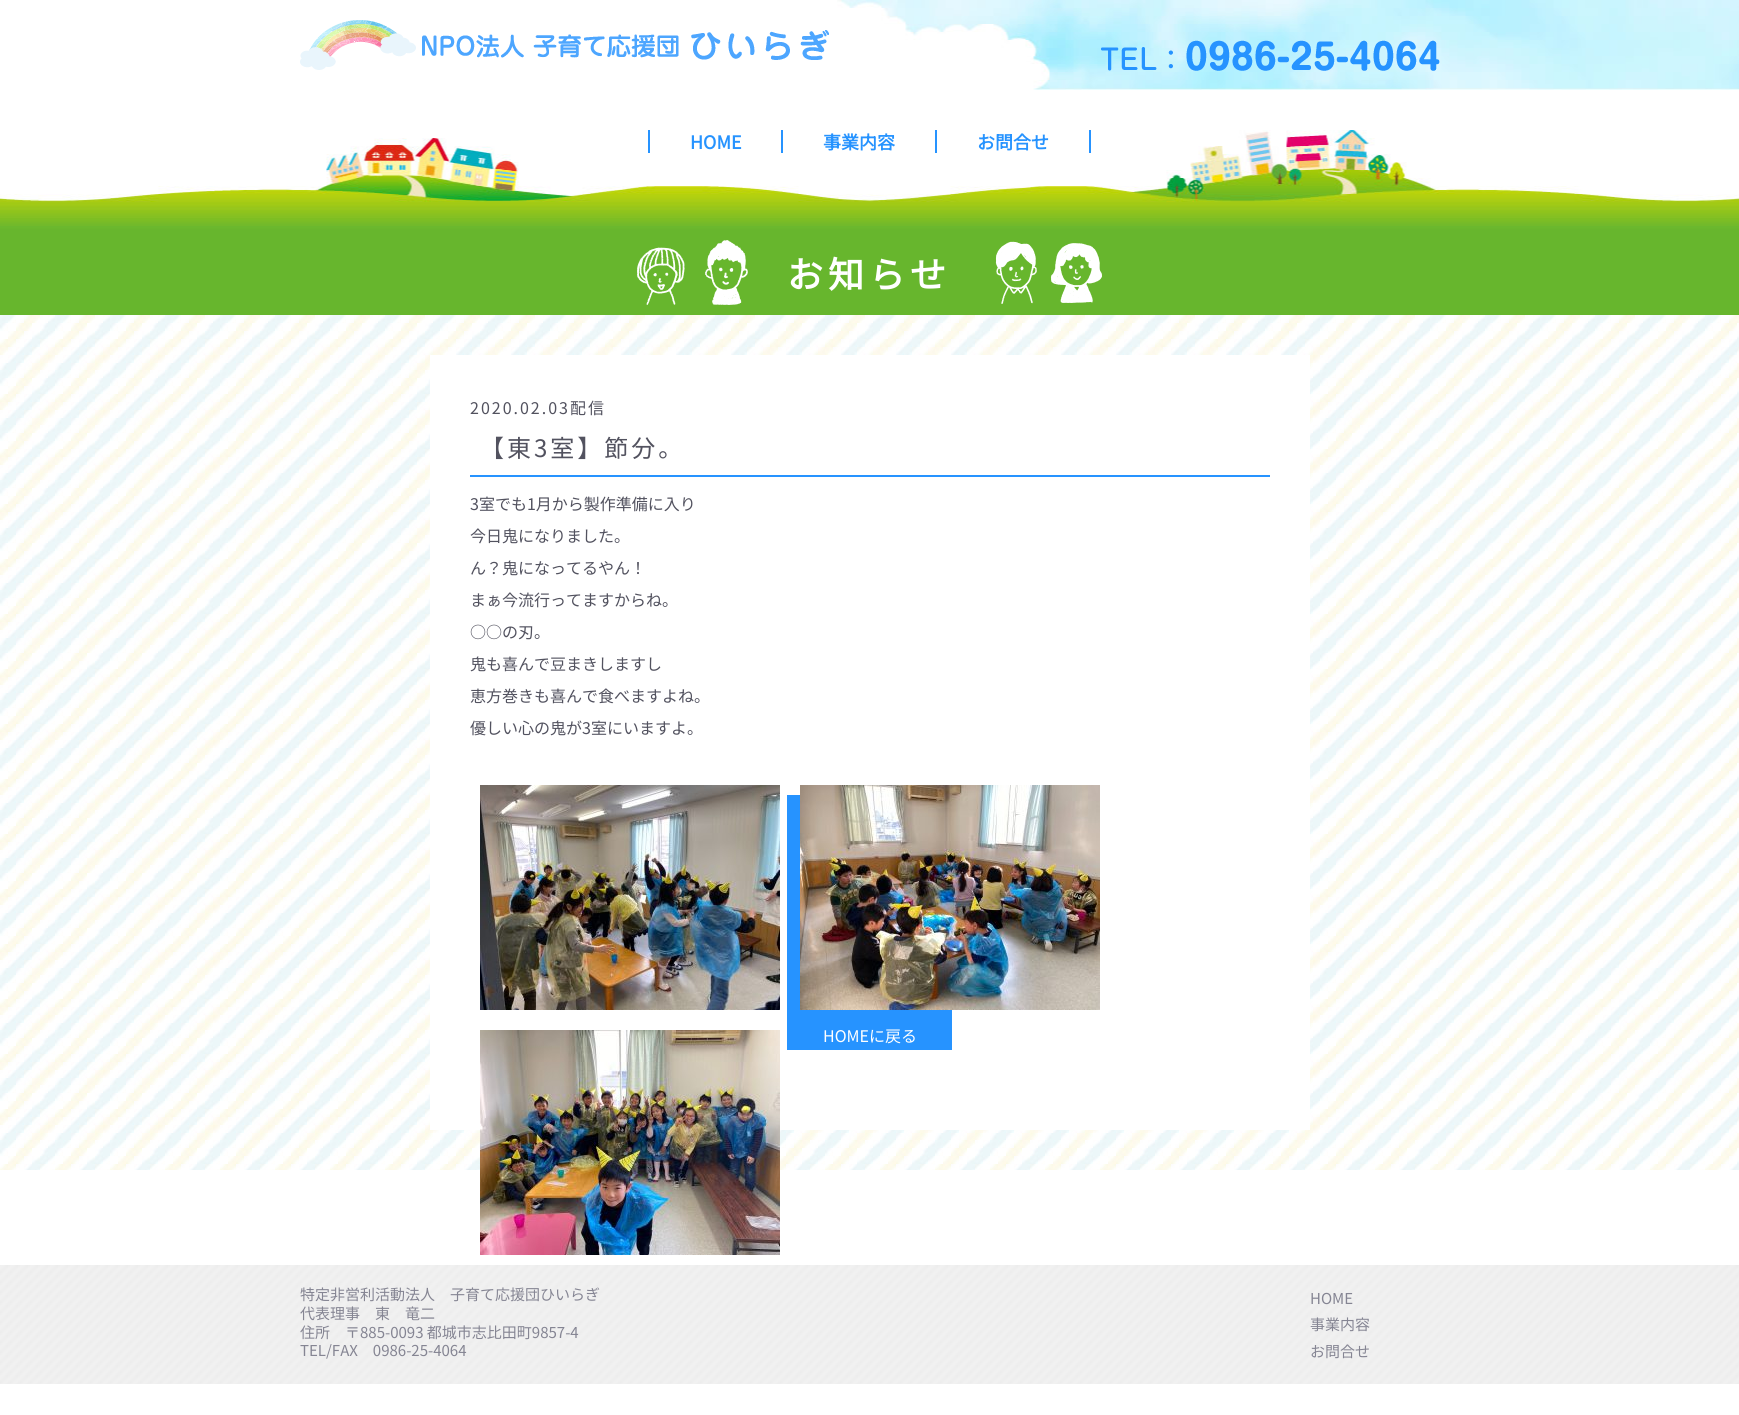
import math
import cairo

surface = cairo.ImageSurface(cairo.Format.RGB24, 1739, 1415)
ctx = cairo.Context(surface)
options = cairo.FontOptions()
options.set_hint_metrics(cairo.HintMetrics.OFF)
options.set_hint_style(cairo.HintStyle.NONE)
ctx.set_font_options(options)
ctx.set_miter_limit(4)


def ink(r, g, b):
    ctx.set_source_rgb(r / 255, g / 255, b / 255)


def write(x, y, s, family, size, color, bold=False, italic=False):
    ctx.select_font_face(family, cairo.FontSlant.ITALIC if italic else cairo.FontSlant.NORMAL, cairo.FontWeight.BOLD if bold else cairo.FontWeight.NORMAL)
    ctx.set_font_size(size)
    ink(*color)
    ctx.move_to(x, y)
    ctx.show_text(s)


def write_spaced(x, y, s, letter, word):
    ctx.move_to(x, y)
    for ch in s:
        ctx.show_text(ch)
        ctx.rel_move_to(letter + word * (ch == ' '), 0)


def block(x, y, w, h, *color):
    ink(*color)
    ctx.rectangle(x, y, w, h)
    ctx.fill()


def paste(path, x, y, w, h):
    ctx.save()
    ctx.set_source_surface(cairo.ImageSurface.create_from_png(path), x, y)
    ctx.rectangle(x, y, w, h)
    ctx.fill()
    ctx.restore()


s1 = dict(family="Noto Sans JP", size=18, color=(38, 147, 255), bold=True)
s2 = dict(family="Noto Sans JP Thin", size=16, color=(82, 82, 95))
s3 = dict(family="Noto Sans JP Thin", size=16, color=(255, 255, 255))
s4 = dict(family="Noto Sans JP Thin", size=15, color=(133, 133, 147))

ink(255, 255, 255)
ctx.paint()
paste("pic1.png", 837, 0, 902, 90)
paste("pic2.png", 300, 20, 529, 50)
paste("pic3.png", 1101, 40, 339, 31)
paste("pic4.png", 0, 130, 1739, 100)
block(648, 130, 2, 23, 38, 147, 255)
write(690, 149, "HOME", **s1)
block(781, 130, 2, 23, 38, 147, 255)
write(823, 149, "事業内容", **s1)
block(1089, 130, 2, 23, 38, 147, 255)
block(935, 130, 2, 23, 38, 147, 255)
write(977, 149, "お問合せ", **s1)
block(0, 230, 1739, 85, 103, 182, 45)
paste("pic5.png", 637, 240, 465, 65)
ctx.set_font_size(36)
ink(255, 255, 255)
write_spaced(787, 288, "お知らせ", 5, 0)
paste("pic6.png", 0, 315, 1739, 855)
block(430, 355, 880, 775, 255, 255, 255)
ctx.select_font_face("Noto Sans JP Thin")
ctx.set_font_size(16)
ink(82, 82, 95)
write_spaced(470, 414, "2020.02.03配信", 2, 0)
block(470, 475, 800, 2, 38, 147, 255)
ctx.set_font_size(24)
ink(82, 82, 95)
write_spaced(480, 457, "【東3室】節分。", 3, 0)
write(470, 510, "3室でも1月から製作準備に入り", **s2)
write(470, 542, "今日鬼になりました。", **s2)
write(470, 574, "ん？鬼になってるやん！", **s2)
write(470, 606, "まぁ今流行ってますからね。", **s2)
write(470, 638, "○○の刃。", **s2)
write(470, 670, "鬼も喜んで豆まきしますし", **s2)
write(470, 702, "恵方巻きも喜んで食べますよね。", **s2)
write(470, 734, "優しい心の鬼が3室にいますよ。", **s2)
paste("pic7.png", 480, 785, 300, 225)
block(787, 795, 165, 255, 38, 147, 255)
paste("pic8.png", 800, 785, 300, 225)
paste("pic9.png", 480, 1030, 300, 225)
write(823, 1042, "HOMEに戻る", **s3)
paste("pic10.png", 0, 1265, 1739, 119)
write(300, 1300, "特定非営利活動法人　子育て応援団ひいらぎ", **s4)
write(300, 1319, "代表理事　東　竜二", **s4)
write(300, 1338, "住所　〒885-0093 都城市志比田町9857-4", **s4)
write(300, 1356, "TEL/FAX　0986-25-4064", **s4)
write(1310, 1304, "HOME", **s4)
write(1310, 1330, "事業内容", **s4)
write(1310, 1357, "お問合せ", **s4)
surface.write_to_png("screenshot.png")
